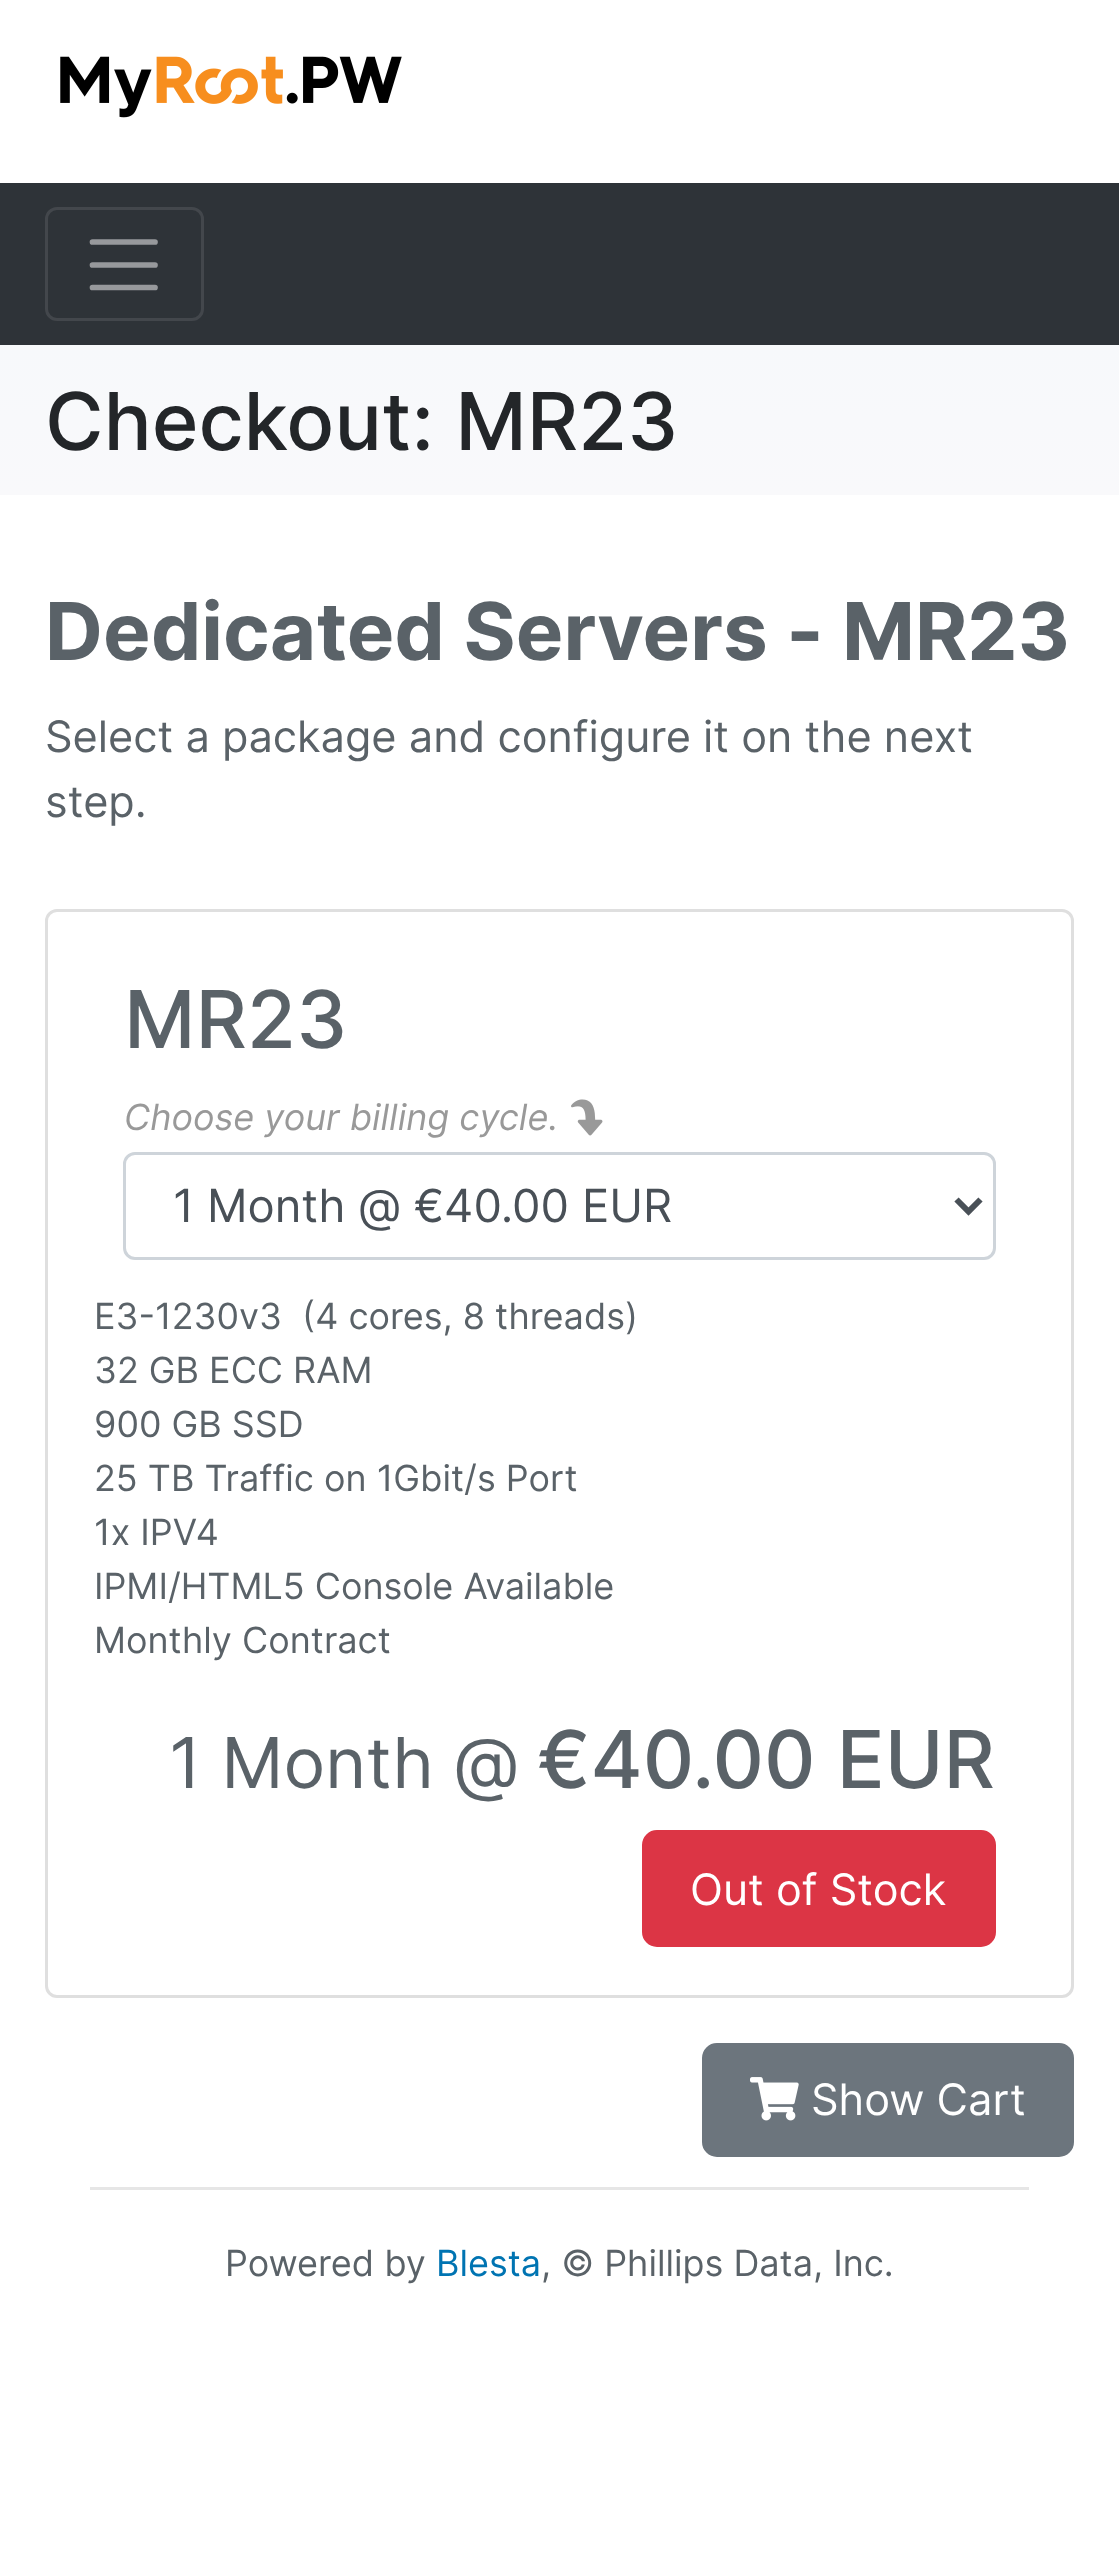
<?xml version="1.0" encoding="UTF-8"?>
<svg xmlns="http://www.w3.org/2000/svg" xmlns:xlink="http://www.w3.org/1999/xlink" width="1119" height="2555">
  <defs>
    <linearGradient id="g1" gradientUnits="userSpaceOnUse" x1="560" y1="345" x2="560" y2="495"><stop offset="0" stop-color="#f7f9fb" /><stop offset="1" stop-color="#f9f9fb" /></linearGradient>
  </defs>
  <rect width="100%" height="100%" fill="#ffffff" />
  <image x="60" y="56" width="342" height="62" xlink:href="image1.png" />
  <rect y="183" width="1119" height="162" fill="#2e3338" />
  <rect x="46.5" y="208.5" width="156" height="111" rx="10.5" fill="none" stroke="#43474c" stroke-width="3" />
  <path d="M 92.5 242 h 62.5 m -62.5 23 h 62.5 m -62.5 22.5 h 62.5" fill="none" stroke="#97999c" stroke-width="5.7" stroke-linecap="round" />
  <rect y="345" width="1119" height="150" fill="url(#g1)" />
  <rect x="46.5" y="910.5" width="1026" height="1086" rx="10.5" fill="none" stroke="#dfdfdf" stroke-width="3" />
  <image x="571" y="1099" width="32" height="37" xlink:href="image2.png" />
  <rect x="124.5" y="1153.5" width="870" height="105" rx="10.5" fill="none" stroke="#ced4da" stroke-width="3" />
  <path d="M 956.5 1199.5 l 12 12 l 12 -12" fill="none" stroke="#495057" stroke-width="6" />
  <rect x="643.5" y="1831.5" width="351" height="114" rx="13.5" fill="#dc3545" stroke="#dc3545" stroke-width="3" />
  <rect x="703.5" y="2044.5" width="369" height="111" rx="13.5" fill="#6c757d" stroke="#6c757d" stroke-width="3" />
  <image x="750" y="2077" width="49" height="44" xlink:href="image3.png" />
  <rect x="90" y="2187" width="939" height="3" fill="#e6e6e6" />
  <text x="45" y="450" style="font-family: Inter; font-size: 79.75px; font-weight: 500; fill: #232629">Checkout: MR23</text>
  <text x="45" y="660" style="font-family: Inter; font-size: 79.75px; font-weight: bold; fill: #5a6268">Dedicated Servers - MR23</text>
  <text x="45" y="752" style="font-family: Inter; font-size: 43.3px; fill: #5a6268">Select a package and configure it on the next</text>
  <text x="45" y="817" style="font-family: Inter; font-size: 43.3px; fill: #5a6268">step.</text>
  <text x="124" y="1048" style="font-family: Inter; font-size: 79.75px; font-weight: 500; fill: #5a6268">MR23</text>
  <text x="124" y="1130" style="font-family: Inter; font-size: 36px; font-style: italic; fill: #999999">Choose your billing cycle.</text>
  <text x="173" y="1222" style="font-family: Inter; font-size: 45.6px; fill: #495057">1 Month @ €40.00 EUR</text>
  <text x="94" y="1329" style="font-family: Inter; font-size: 36px; fill: #5a6268" xml:space="preserve">E3-1230v3  (4 cores, 8 threads)</text>
  <text x="94" y="1383" style="font-family: Inter; font-size: 36px; fill: #5a6268">32 GB ECC RAM</text>
  <text x="94" y="1437" style="font-family: Inter; font-size: 36px; fill: #5a6268">900 GB SSD</text>
  <text x="94" y="1491" style="font-family: Inter; font-size: 36px; fill: #5a6268">25 TB Traffic on 1Gbit/s Port</text>
  <text x="94" y="1545" style="font-family: Inter; font-size: 36px; fill: #5a6268">1x IPV4</text>
  <text x="94" y="1599" style="font-family: Inter; font-size: 36px; fill: #5a6268">IPMI/HTML5 Console Available</text>
  <text x="94" y="1653" style="font-family: Inter; font-size: 36px; fill: #5a6268">Monthly Contract</text>
  <text x="169" y="1788" style="font-family: Inter; font-size: 70px; fill: #5a6268">1 Month @</text>
  <text x="537" y="1788" style="font-family: Inter; font-size: 79.75px; font-weight: 500; fill: #5a6268">€40.00 EUR</text>
  <text x="690" y="1905" style="font-family: Inter; font-size: 43.3px; fill: #ffffff">Out of Stock</text>
  <text x="811" y="2115" style="font-family: Inter; font-size: 43.3px; fill: #ffffff">Show Cart</text>
  <text x="225" y="2276" style="font-family: Inter; font-size: 36px; fill: #5a6268">Powered by</text>
  <text x="436" y="2276" style="font-family: Inter; font-size: 36px; fill: #0074b2">Blesta</text>
  <text x="541" y="2276" style="font-family: Inter; font-size: 36px; fill: #5a6268">, © Phillips Data, Inc.</text>
</svg>
